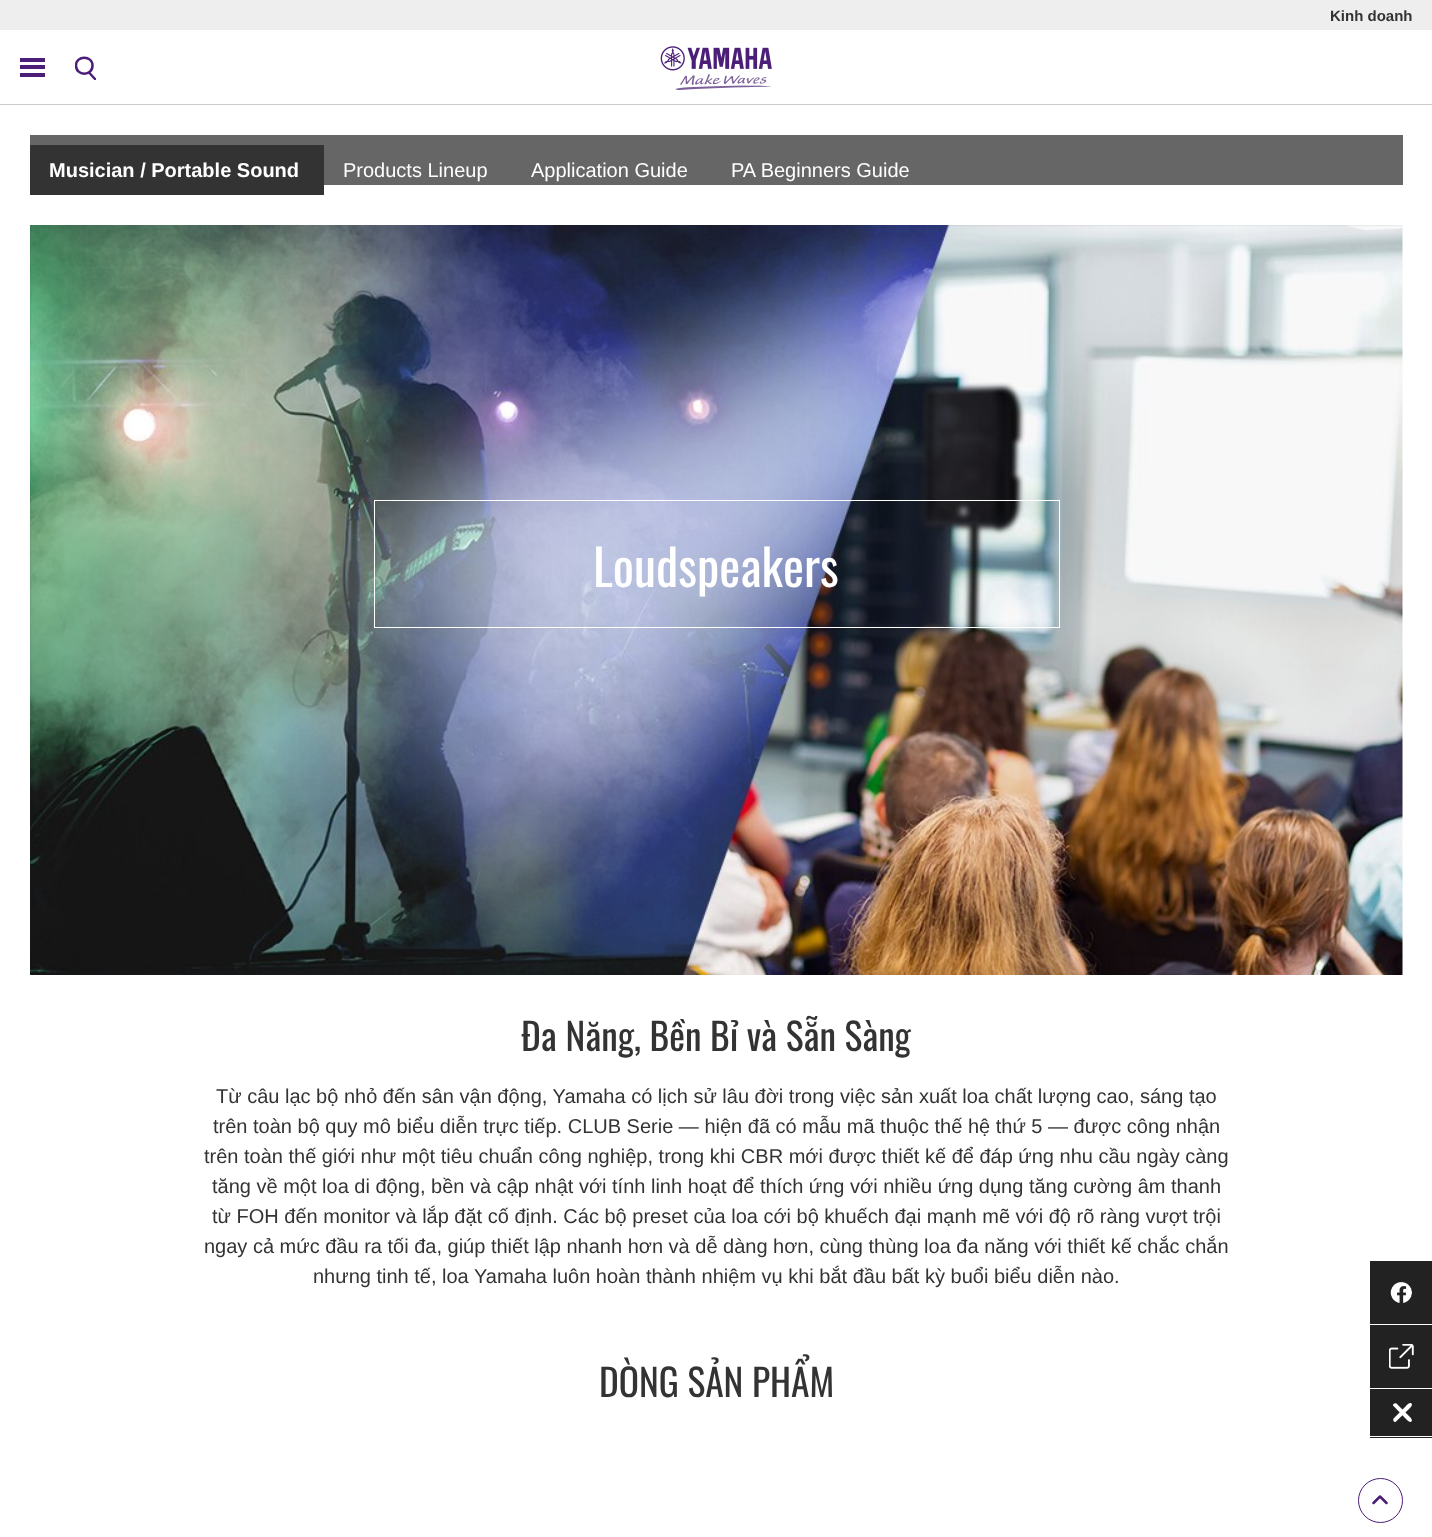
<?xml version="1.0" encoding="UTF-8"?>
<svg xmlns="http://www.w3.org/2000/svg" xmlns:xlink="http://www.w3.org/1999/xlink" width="1432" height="1537">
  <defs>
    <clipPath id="clip1"><rect x="75" y="56" width="21" height="24" /></clipPath>
  </defs>
  <rect width="100%" height="100%" fill="#ffffff" />
  <rect y="104" width="1432" height="1" fill="#cccccc" />
  <rect width="1432" height="30" fill="#eeeeee" />
  <rect x="20" y="65" width="25" height="4" fill="#4b1e78" />
  <rect x="20" y="58" width="25" height="4" fill="#4b1e78" />
  <rect x="20" y="73" width="25" height="4" fill="#4b1e78" />
  <g clip-path="url(#clip1)">
    <path d="M 89 72.5 l 6 6.5 z m -13 -7 c 0 -10.5 16.5 -10.5 16.5 0 c 0 11 -16.5 11 -16.5 0 z" fill="none" stroke="#4b1e78" stroke-width="2.5" stroke-linecap="round" stroke-linejoin="round" />
  </g>
  <image x="660" y="46" width="112" height="44" xlink:href="image1.png" />
  <rect x="30" y="135" width="1373" height="50" fill="#666666" />
  <rect x="30" y="145" width="294" height="50" fill="#333333" />
  <image x="30" y="225" width="1373" height="750" xlink:href="image2.png" />
  <rect x="374.5" y="500.5" width="685" height="127" fill="none" stroke="#ffffff" />
  <rect x="1370" y="1261" width="62" height="177" fill="#222222" />
  <image x="1390" y="1282" width="22" height="21" xlink:href="image3.png" />
  <rect x="1369" y="1324" width="63" height="1" fill="#ffffff" />
  <image x="1389" y="1344" width="25" height="25" xlink:href="image4.png" />
  <rect x="1369" y="1388" width="63" height="1" fill="#ffffff" />
  <rect x="1369" y="1436" width="63" height="1" fill="#ffffff" />
  <path d="M 1396.5 1403.5 l 12.5 12.5 c 1 1 4 3.5 2.5 5.5 c -2 1.5 -4.5 -1.5 -5.5 -2.5 l -13 -13.5 c -0.5 -1.5 2 -3 3.5 -2 z" fill="#ffffff" />
  <path d="M 1393.5 1418.5 l 12.5 -12.5 c 1 -1 3.5 -4 5.5 -2.5 c 1.5 2 -1.5 4.5 -2.5 5.5 l -13.5 13 c -1.5 0.5 -3 -2 -2 -3.5 z" fill="#ffffff" />
  <circle cx="1380.5" cy="1500.5" r="22" fill="none" stroke="#4b1e78" />
  <path d="M 1373.5 1503 l 6.5 -6.5 l 6.5 6.5" fill="none" stroke="#4b1e78" stroke-width="2.5" stroke-linecap="round" stroke-linejoin="round" />
  <text x="1330" y="21" style="font-family: Liberation Sans; font-size: 15px; font-weight: bold; fill: #333333">Kinh doanh</text>
  <text x="49" y="177" style="font-family: Liberation Sans; font-size: 20px; font-weight: bold; fill: #ffffff">Musician / Portable Sound</text>
  <text x="343" y="177" style="font-family: Liberation Sans; font-size: 20px; fill: #ffffff">Products Lineup</text>
  <text x="531" y="177" style="font-family: Liberation Sans; font-size: 20px; fill: #ffffff">Application Guide</text>
  <text x="731" y="177" style="font-family: Liberation Sans; font-size: 20px; fill: #ffffff">PA Beginners Guide</text>
  <text x="593" y="587" style="font-family: Oswald; font-size: 50px; fill: #ffffff">Loudspeakers</text>
  <text x="521" y="1051" style="font-family: Oswald; font-size: 37.5px; fill: #333333">Đa Năng, Bền Bỉ và Sẵn Sàng</text>
  <text x="216" y="1103" style="font-family: Liberation Sans; font-size: 20px; fill: #333333">Từ câu lạc bộ nhỏ đến sân vận động, Yamaha có lịch sử lâu đời trong việc sản xuất loa chất lượng cao, sáng tạo</text>
  <text x="213" y="1133" style="font-family: Liberation Sans; font-size: 20px; fill: #333333">trên toàn bộ quy mô biểu diễn trực tiếp. CLUB Serie — hiện đã có mẫu mã thuộc thế hệ thứ 5 — được công nhận</text>
  <text x="204" y="1163" style="font-family: Liberation Sans; font-size: 20px; fill: #333333">trên toàn thế giới như một tiêu chuẩn công nghiệp, trong khi CBR mới được thiết kế để đáp ứng nhu cầu ngày càng</text>
  <text x="212" y="1193" style="font-family: Liberation Sans; font-size: 20px; fill: #333333">tăng về một loa di động, bền và cập nhật với tính linh hoạt để thích ứng với nhiều ứng dụng tăng cường âm thanh</text>
  <text x="212" y="1223" style="font-family: Liberation Sans; font-size: 20px; fill: #333333">từ FOH đến monitor và lắp đặt cố định. Các bộ preset của loa cới bộ khuếch đại mạnh mẽ với độ rõ ràng vượt trội</text>
  <text x="204" y="1253" style="font-family: Liberation Sans; font-size: 20px; fill: #333333">ngay cả mức đầu ra tối đa, giúp thiết lập nhanh hơn và dễ dàng hơn, cùng thùng loa đa năng với thiết kế chắc chắn</text>
  <text x="313" y="1283" style="font-family: Liberation Sans; font-size: 20px; fill: #333333">nhưng tinh tế, loa Yamaha luôn hoàn thành nhiệm vụ khi bắt đầu bất kỳ buổi biểu diễn nào.</text>
  <text x="599" y="1397" style="font-family: Oswald; font-size: 37.5px; fill: #333333">DÒNG SẢN PHẨM</text>
</svg>
